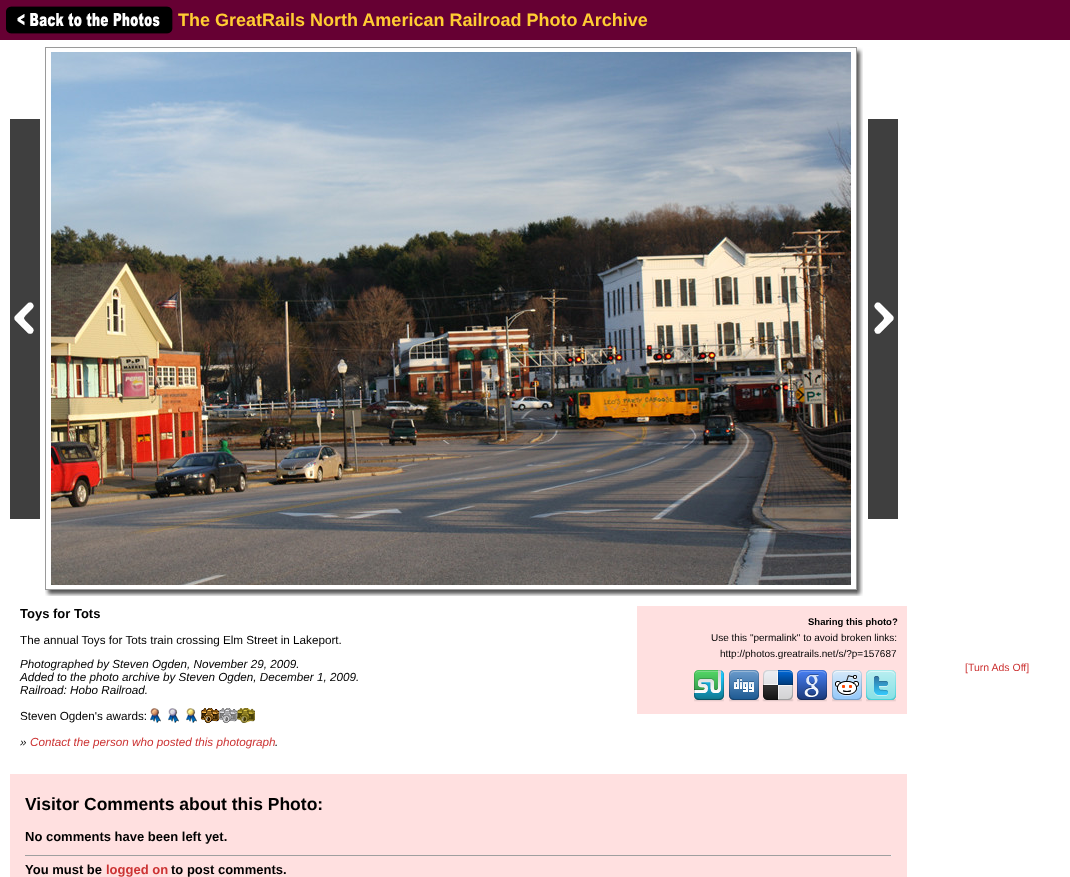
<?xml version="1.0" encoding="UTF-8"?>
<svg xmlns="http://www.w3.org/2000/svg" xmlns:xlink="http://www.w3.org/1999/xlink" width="1070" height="877">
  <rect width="100%" height="100%" fill="#ffffff" />
  <rect width="1070" height="40" fill="#660033" />
  <image x="6" y="6" width="167" height="28" xlink:href="image1.png" />
  <image x="10" y="119" width="30" height="400" xlink:href="image2.png" />
  <rect x="45.5" y="47.5" width="811" height="542" fill="none" stroke="#9a9a9a" />
  <image x="51" y="52" width="800" height="533" xlink:href="image3.png" />
  <image x="857" y="47" width="6" height="543" xlink:href="image4.png" />
  <image x="868" y="119" width="30" height="400" xlink:href="image5.png" />
  <image x="45" y="590" width="812" height="6" xlink:href="image6.png" />
  <image x="857" y="590" width="6" height="6" xlink:href="image7.png" />
  <image x="150" y="708" width="11" height="15" xlink:href="image8.png" />
  <image x="168" y="708" width="11" height="15" xlink:href="image9.png" />
  <image x="186" y="708" width="11" height="15" xlink:href="image10.png" />
  <image x="201" y="708" width="18" height="15" xlink:href="image11.png" />
  <image x="219" y="708" width="18" height="15" xlink:href="image12.png" />
  <image x="237" y="708" width="18" height="15" xlink:href="image13.png" />
  <rect x="637" y="606" width="270" height="108" fill="#ffe0e0" />
  <image x="694" y="670" width="30" height="32" xlink:href="image14.png" />
  <image x="729" y="670" width="30" height="32" xlink:href="image15.png" />
  <image x="762" y="670" width="32" height="32" xlink:href="image16.png" />
  <image x="797" y="670" width="30" height="32" xlink:href="image17.png" />
  <image x="832" y="670" width="30" height="32" xlink:href="image18.png" />
  <image x="866" y="670" width="30" height="32" xlink:href="image19.png" />
  <rect x="10" y="774" width="897" height="103" fill="#ffe0e0" />
  <rect x="25" y="855" width="867" height="1" fill="#9f9f9f" />
  <rect x="891" y="855" width="1" height="1" fill="#eeeeee" />
  <text x="178" y="26" style="font-family: Liberation Sans; font-size: 18px; font-weight: bold; fill: #ffcc33">The GreatRails North American Railroad Photo Archive</text>
  <text x="20" y="618" style="font-family: Liberation Sans; font-size: 13px; font-weight: bold; fill: #000000">Toys for Tots</text>
  <text x="20" y="644" style="font-family: Liberation Sans; font-size: 11.7px; fill: #000000">The annual Toys for Tots train crossing Elm Street in Lakeport.</text>
  <text x="20" y="668" style="font-family: Liberation Sans; font-size: 11.7px; font-style: italic; fill: #000000">Photographed by Steven Ogden, November 29, 2009.</text>
  <text x="20" y="681" style="font-family: Liberation Sans; font-size: 11.7px; font-style: italic; fill: #000000">Added to the photo archive by Steven Ogden, December 1, 2009.</text>
  <text x="20" y="694" style="font-family: Liberation Sans; font-size: 11.7px; font-style: italic; fill: #000000">Railroad: Hobo Railroad.</text>
  <text x="20" y="720" style="font-family: Liberation Sans; font-size: 11.7px; fill: #000000">Steven Ogden's awards:</text>
  <text x="20" y="746" style="font-family: Liberation Sans; font-size: 11.7px; font-style: italic; fill: #000000">»</text>
  <text x="30" y="746" style="font-family: Liberation Sans; font-size: 11.7px; font-style: italic; fill: #cc3333">Contact the person who posted this photograph</text>
  <text x="275" y="746" style="font-family: Liberation Sans; font-size: 11.7px; font-style: italic; fill: #000000">.</text>
  <text x="808" y="625" style="font-family: Liberation Sans; font-size: 9.5px; font-weight: bold; fill: #000000">Sharing this photo?</text>
  <text x="711" y="641" style="font-family: Liberation Sans; font-size: 10px; fill: #000000">Use this "permalink" to avoid broken links:</text>
  <text x="720" y="657" style="font-family: Liberation Sans; font-size: 10px; fill: #000000">http://photos.greatrails.net/s/?p=157687</text>
  <text x="965" y="671" style="font-family: Liberation Sans; font-size: 10.5px; fill: #cc3333">[Turn Ads Off]</text>
  <text x="25" y="810" style="font-family: Liberation Sans; font-size: 17.5px; font-weight: bold; fill: #000000">Visitor Comments about this Photo:</text>
  <text x="25" y="841" style="font-family: Liberation Sans; font-size: 13px; font-weight: bold; fill: #000000">No comments have been left yet.</text>
  <text x="25" y="874" style="font-family: Liberation Sans; font-size: 13px; font-weight: bold; fill: #000000">You must be</text>
  <text x="106" y="874" style="font-family: Liberation Sans; font-size: 13px; font-weight: bold; fill: #cc3333">logged on</text>
  <text x="171" y="874" style="font-family: Liberation Sans; font-size: 13px; font-weight: bold; fill: #000000">to post comments.</text>
</svg>
